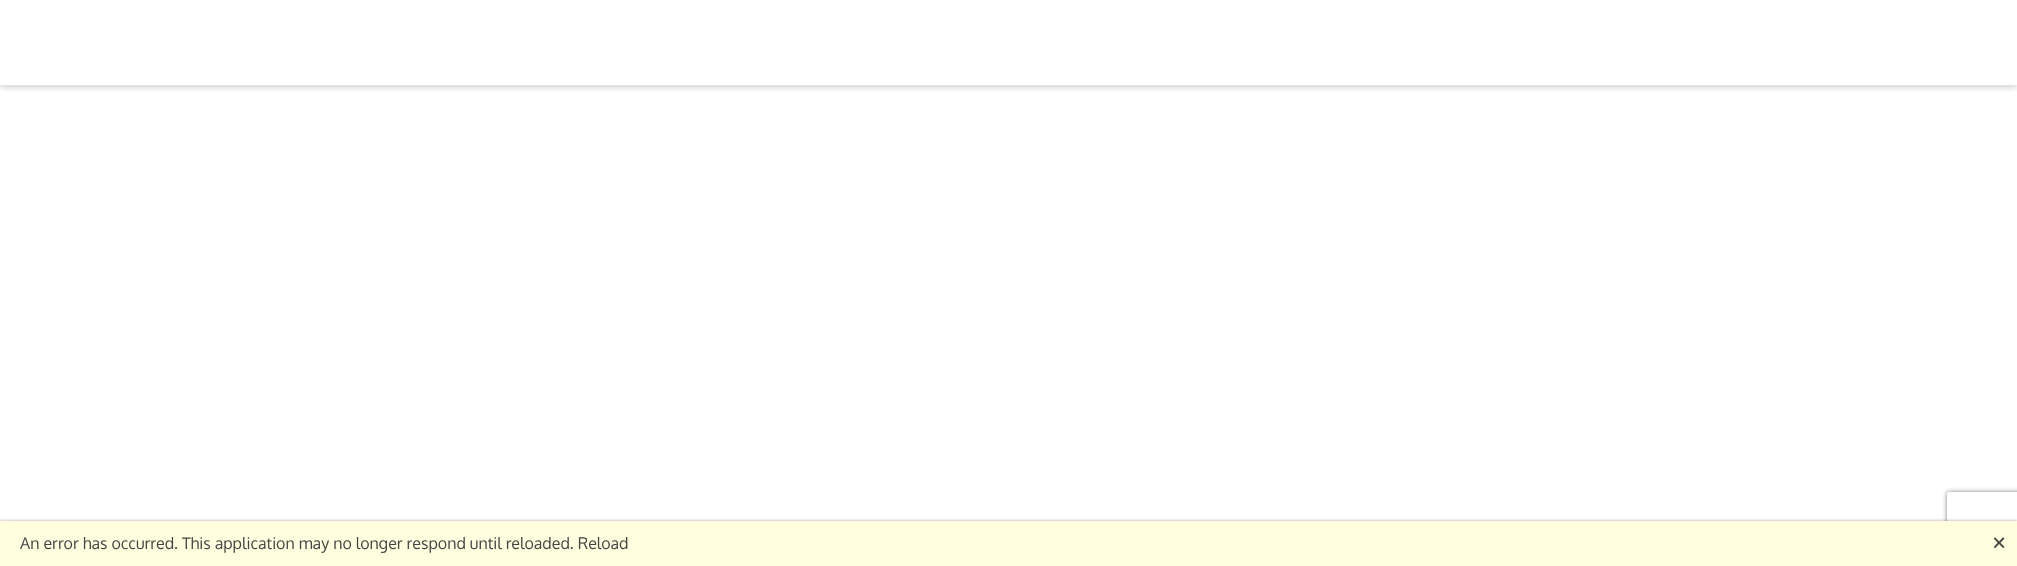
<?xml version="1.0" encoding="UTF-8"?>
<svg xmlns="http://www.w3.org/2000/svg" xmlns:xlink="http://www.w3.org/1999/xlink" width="2017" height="566">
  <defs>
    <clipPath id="clip1"><rect x="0" y="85" width="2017" height="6" /></clipPath>
    <clipPath id="clip2"><path d="M 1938 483 h 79 v 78 h -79 z m 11 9 h 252 c 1 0 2 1 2 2 v 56 c 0 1 -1 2 -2 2 h -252 c -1 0 -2 -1 -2 -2 v -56 c 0 -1 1 -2 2 -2 z" clip-rule="evenodd" /></clipPath>
  </defs>
  <rect width="100%" height="100%" fill="#ffffff" />
  <g clip-path="url(#clip1)">
    <rect y="3" width="2017" height="85" fill="#000000" fill-opacity="0.16" filter="blur(3px)" />
  </g>
  <g clip-path="url(#clip2)">
    <rect x="1947" y="492" width="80" height="60" rx="2" fill="#808080" filter="blur(2.5px)" />
  </g>
  <rect y="520" width="2017" height="45" fill="#000000" fill-opacity="0.2" filter="blur(1px)" />
  <rect y="521" width="2017" height="45" fill="#ffffe0" />
  <text x="20" y="549" style="font-family: Oxygen; font-size: 16px; fill: #444444">An error has occurred. This application may no longer respond until reloaded. Reload</text>
  <text x="1993" y="547" style="font-family: 'Noto Sans Symbols 2'; font-size: 16px; fill: #444444">🗙</text>
</svg>
